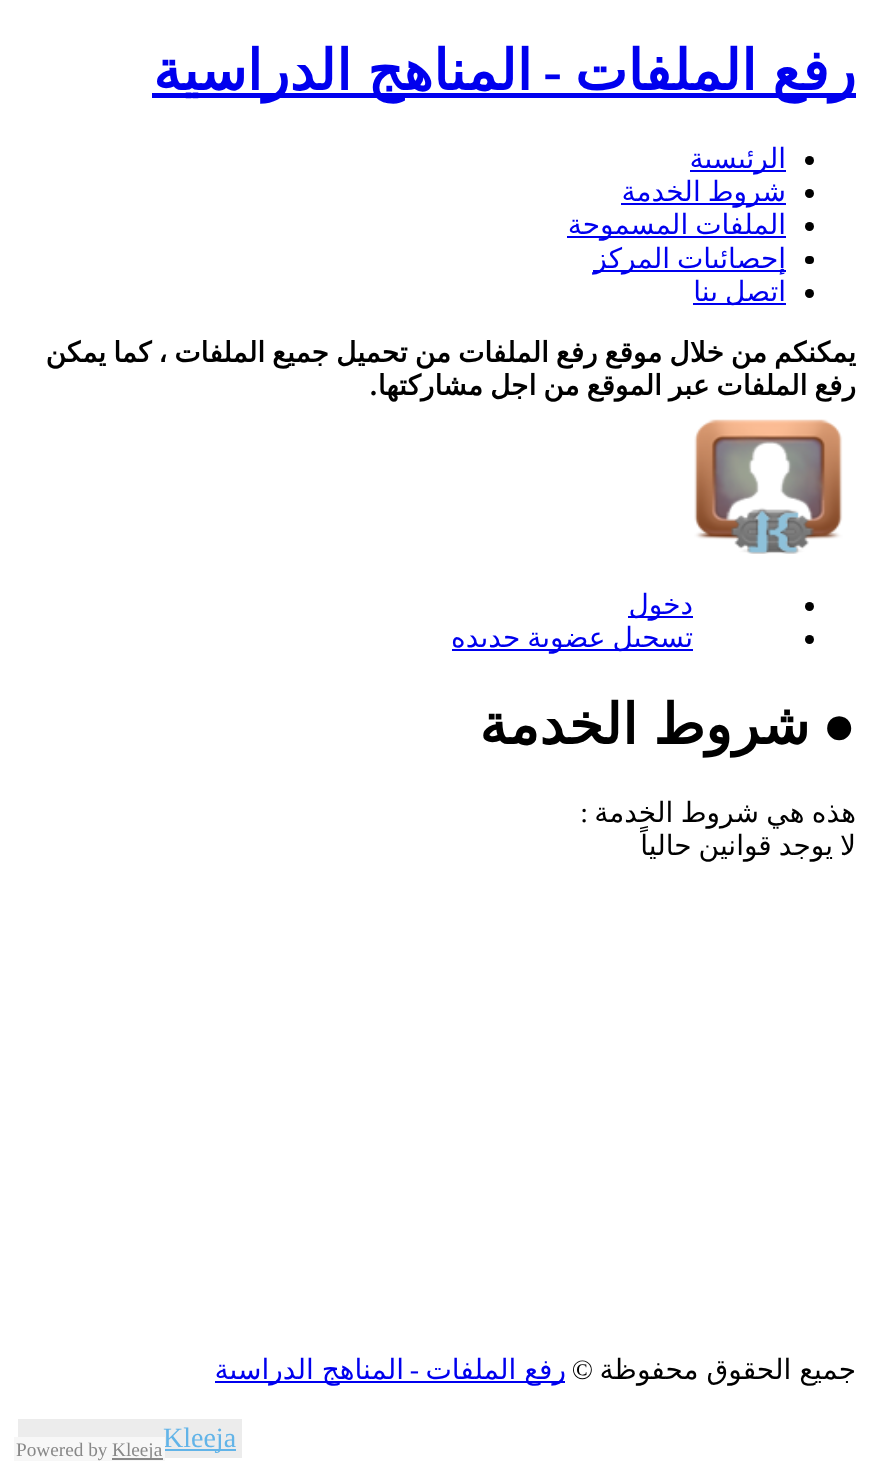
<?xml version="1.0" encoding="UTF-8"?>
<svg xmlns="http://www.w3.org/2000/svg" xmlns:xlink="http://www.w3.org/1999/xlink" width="869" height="1466">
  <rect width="100%" height="100%" fill="#ffffff" />
  <rect x="152" y="93" width="704" height="5" fill="#0000ee" />
  <circle cx="809.5" cy="160.5" r="4.5" fill="#000000" />
  <rect x="690" y="170" width="96" height="2" fill="#0000ee" />
  <circle cx="809.5" cy="193.5" r="4.5" fill="#000000" />
  <rect x="621" y="203" width="165" height="2" fill="#0000ee" />
  <circle cx="809.5" cy="226.5" r="4.5" fill="#000000" />
  <rect x="567" y="236" width="219" height="2" fill="#0000ee" />
  <rect x="805" y="256" width="9" height="8" rx="4" fill="#000000" />
  <rect x="593" y="270" width="193" height="2" fill="#0000ee" />
  <circle cx="809.5" cy="293.5" r="4.5" fill="#000000" />
  <rect x="693" y="303" width="93" height="2" fill="#0000ee" />
  <image x="694" y="419" width="149" height="135" xlink:href="image1.png" />
  <circle cx="809.5" cy="606.5" r="4.5" fill="#000000" />
  <rect x="628" y="616" width="65" height="2" fill="#0000ee" />
  <circle cx="809.5" cy="639.5" r="4.5" fill="#000000" />
  <rect x="452" y="649" width="241" height="2" fill="#0000ee" />
  <rect x="215" y="1381" width="350" height="2" fill="#0000ee" />
  <rect x="18" y="1419" width="224" height="39" fill="#ececec" />
  <rect x="163" y="1449" width="73" height="2" fill="#62b4e8" />
  <text x="856" y="90" word-spacing="-1.9" style="font-family: DejaVu Sans; font-size: 56px; font-weight: bold; direction: rtl; fill: #0000ee">رفع الملفات</text>
  <text x="562" y="90" style="font-family: Liberation Serif; font-size: 56px; font-weight: bold; direction: rtl; fill: #0000ee">-</text>
  <text x="532" y="90" word-spacing="-1.9" style="font-family: DejaVu Sans; font-size: 56px; font-weight: bold; direction: rtl; fill: #0000ee">المناهج الدراسية</text>
  <text x="786" y="168" style="font-family: DejaVu Sans; font-size: 28px; direction: rtl; fill: #0000ee">الرئيسية</text>
  <text x="786" y="201" word-spacing="-1.9" style="font-family: DejaVu Sans; font-size: 28px; direction: rtl; fill: #0000ee">شروط الخدمة</text>
  <text x="786" y="234" word-spacing="-1.9" style="font-family: DejaVu Sans; font-size: 28px; direction: rtl; fill: #0000ee">الملفات المسموحة</text>
  <text x="786" y="268" word-spacing="-1.9" style="font-family: DejaVu Sans; font-size: 28px; direction: rtl; fill: #0000ee">إحصائيات المركز</text>
  <text x="786" y="301" word-spacing="-1.9" style="font-family: DejaVu Sans; font-size: 28px; direction: rtl; fill: #0000ee">اتصل بنا</text>
  <text x="856" y="362" word-spacing="-1.9" style="font-family: DejaVu Sans; font-size: 28px; font-weight: bold; direction: rtl; fill: #000000">يمكنكم من خلال موقع رفع الملفات من تحميل جميع الملفات ، كما يمكن</text>
  <text x="856" y="395" word-spacing="-1.9" style="font-family: DejaVu Sans; font-size: 28px; font-weight: bold; direction: rtl; fill: #000000">رفع الملفات عبر الموقع من اجل مشاركتها</text>
  <text x="377" y="395" style="font-family: Liberation Serif; font-size: 28px; font-weight: bold; direction: rtl; fill: #000000">.</text>
  <text x="693" y="614" style="font-family: DejaVu Sans; font-size: 28px; direction: rtl; fill: #0000ee">دخول</text>
  <text x="693" y="647" word-spacing="-1.9" style="font-family: DejaVu Sans; font-size: 28px; direction: rtl; fill: #0000ee">تسجيل عضوية جديده</text>
  <text x="856" y="744" style="font-family: Liberation Serif; font-size: 56px; font-weight: bold; direction: rtl; fill: #000000">●</text>
  <text x="810" y="744" word-spacing="-1.9" style="font-family: DejaVu Sans; font-size: 56px; font-weight: bold; direction: rtl; fill: #000000">شروط الخدمة</text>
  <text x="856" y="822" word-spacing="-1.5" style="font-family: DejaVu Sans; font-size: 28px; direction: rtl; fill: #000000">هذه هي شروط الخدمة</text>
  <text x="588" y="822" style="font-family: Liberation Serif; font-size: 28px; direction: rtl; fill: #000000">:</text>
  <text x="856" y="855" word-spacing="-1.9" style="font-family: DejaVu Sans; font-size: 28px; direction: rtl; fill: #000000">لا يوجد قوانين حالياً</text>
  <text x="856" y="1379" word-spacing="-1" style="font-family: DejaVu Sans; font-size: 28px; direction: rtl; fill: #000000">جميع الحقوق محفوظة</text>
  <text x="593" y="1379" style="font-family: Liberation Serif; font-size: 28px; direction: rtl; fill: #000000">©</text>
  <text x="566" y="1379" word-spacing="-1" style="font-family: DejaVu Sans; font-size: 28px; direction: rtl; fill: #0000ee">رفع الملفات</text>
  <text x="419" y="1379" style="font-family: Liberation Serif; font-size: 28px; direction: rtl; fill: #0000ee">-</text>
  <text x="404" y="1379" word-spacing="-1" style="font-family: DejaVu Sans; font-size: 28px; direction: rtl; fill: #0000ee">المناهج الدراسية</text>
  <text x="163" y="1447" style="font-family: Liberation Serif; font-size: 28px; fill: #62b4e8">Kleeja</text>
  <rect x="14" y="1437" width="151" height="24" fill="#f7f7f7" />
  <rect x="112" y="1458" width="51" height="2" fill="#888888" />
  <text x="112" y="1456" style="font-family: Liberation Serif; font-size: 19.25px; fill: #888888">Kleeja</text>
  <text x="16" y="1456" style="font-family: Liberation Serif; font-size: 19.25px; fill: #888888">Powered by</text>
</svg>
